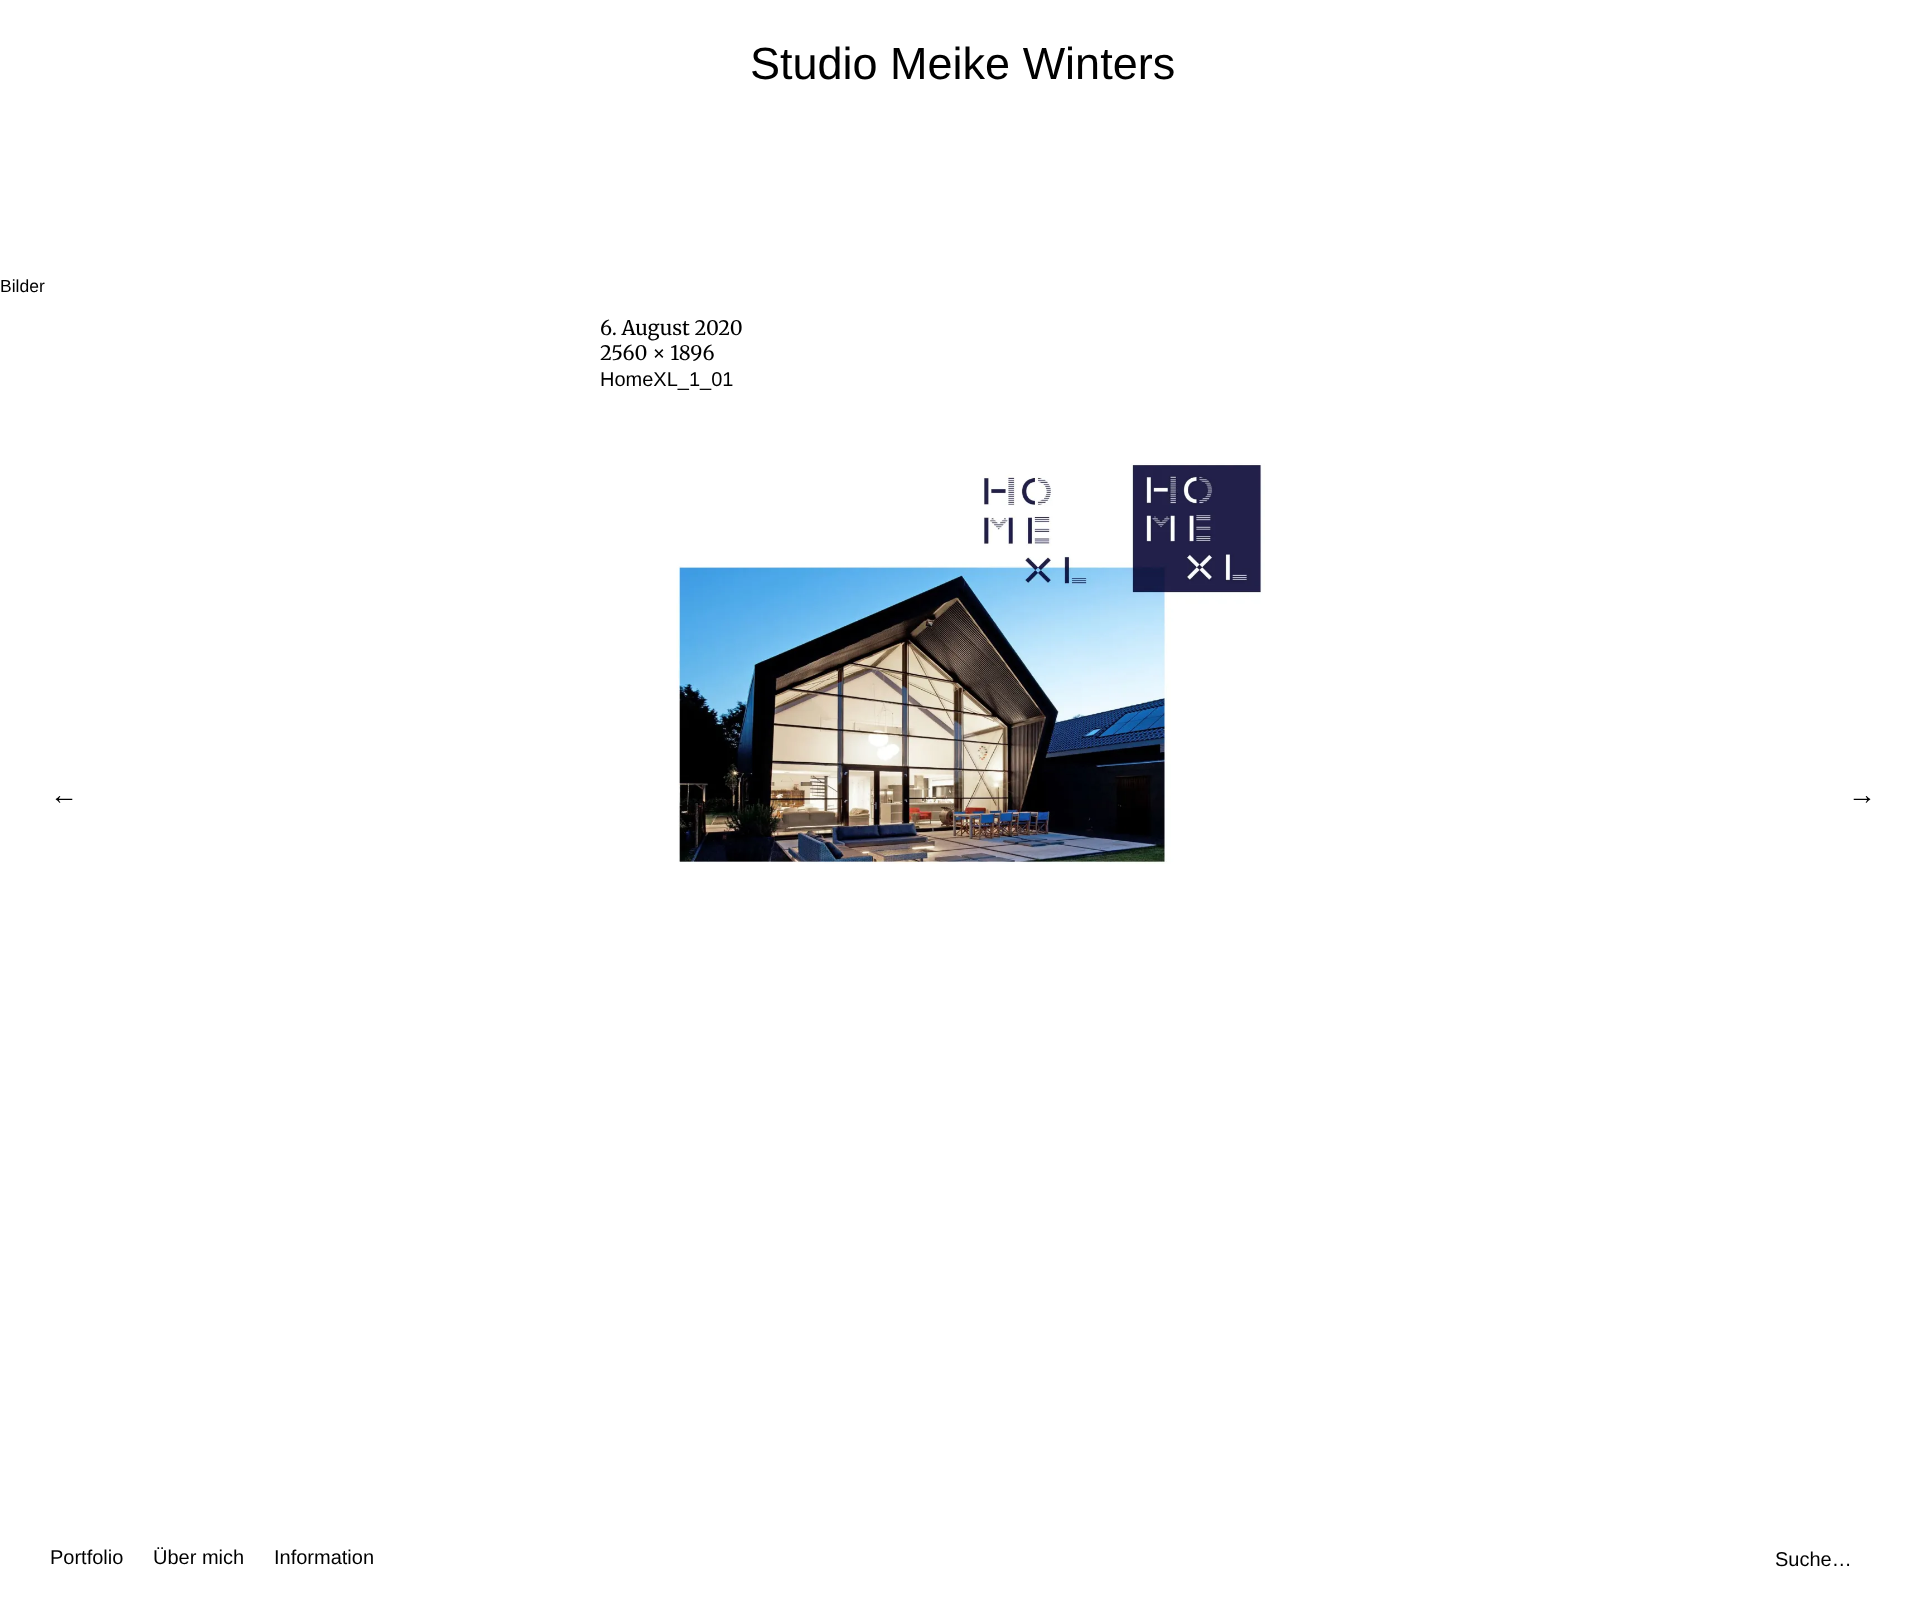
<?xml version="1.0" encoding="UTF-8"?>
<svg xmlns="http://www.w3.org/2000/svg" xmlns:xlink="http://www.w3.org/1999/xlink" width="1924" height="1608">
  <rect width="100%" height="100%" fill="#ffffff" />
  <image x="676" y="463" width="589" height="401" xlink:href="image1.png" />
  <text x="750" y="79" style="font-family: Liberation Sans; font-size: 45px; fill: #000000">Studio Meike Winters</text>
  <text x="50" y="1564" style="font-family: Liberation Sans; font-size: 20px; fill: #000000">Portfolio</text>
  <text x="153" y="1564" style="font-family: Liberation Sans; font-size: 20px; fill: #000000">Über mich</text>
  <text x="274" y="1564" style="font-family: Liberation Sans; font-size: 20px; fill: #000000">Information</text>
  <text x="0" y="292" style="font-family: Liberation Sans; font-size: 17.5px; fill: #000000">Bilder</text>
  <text x="600" y="335" style="font-family: Merriweather; font-size: 20px; fill: #000000">6. August 2020</text>
  <text x="600" y="360" style="font-family: Merriweather; font-size: 20px; fill: #000000">2560 × 1896</text>
  <text x="600" y="386" style="font-family: Liberation Sans; font-size: 20px; fill: #000000">HomeXL_1_01</text>
  <text x="50" y="804" style="font-family: Liberation Sans; font-size: 28px; fill: #000000">←</text>
  <text x="1848" y="804" style="font-family: Liberation Sans; font-size: 28px; fill: #000000">→</text>
  <text x="1775" y="1566" style="font-family: Liberation Sans; font-size: 20px; fill: #000000">Suche…</text>
</svg>
